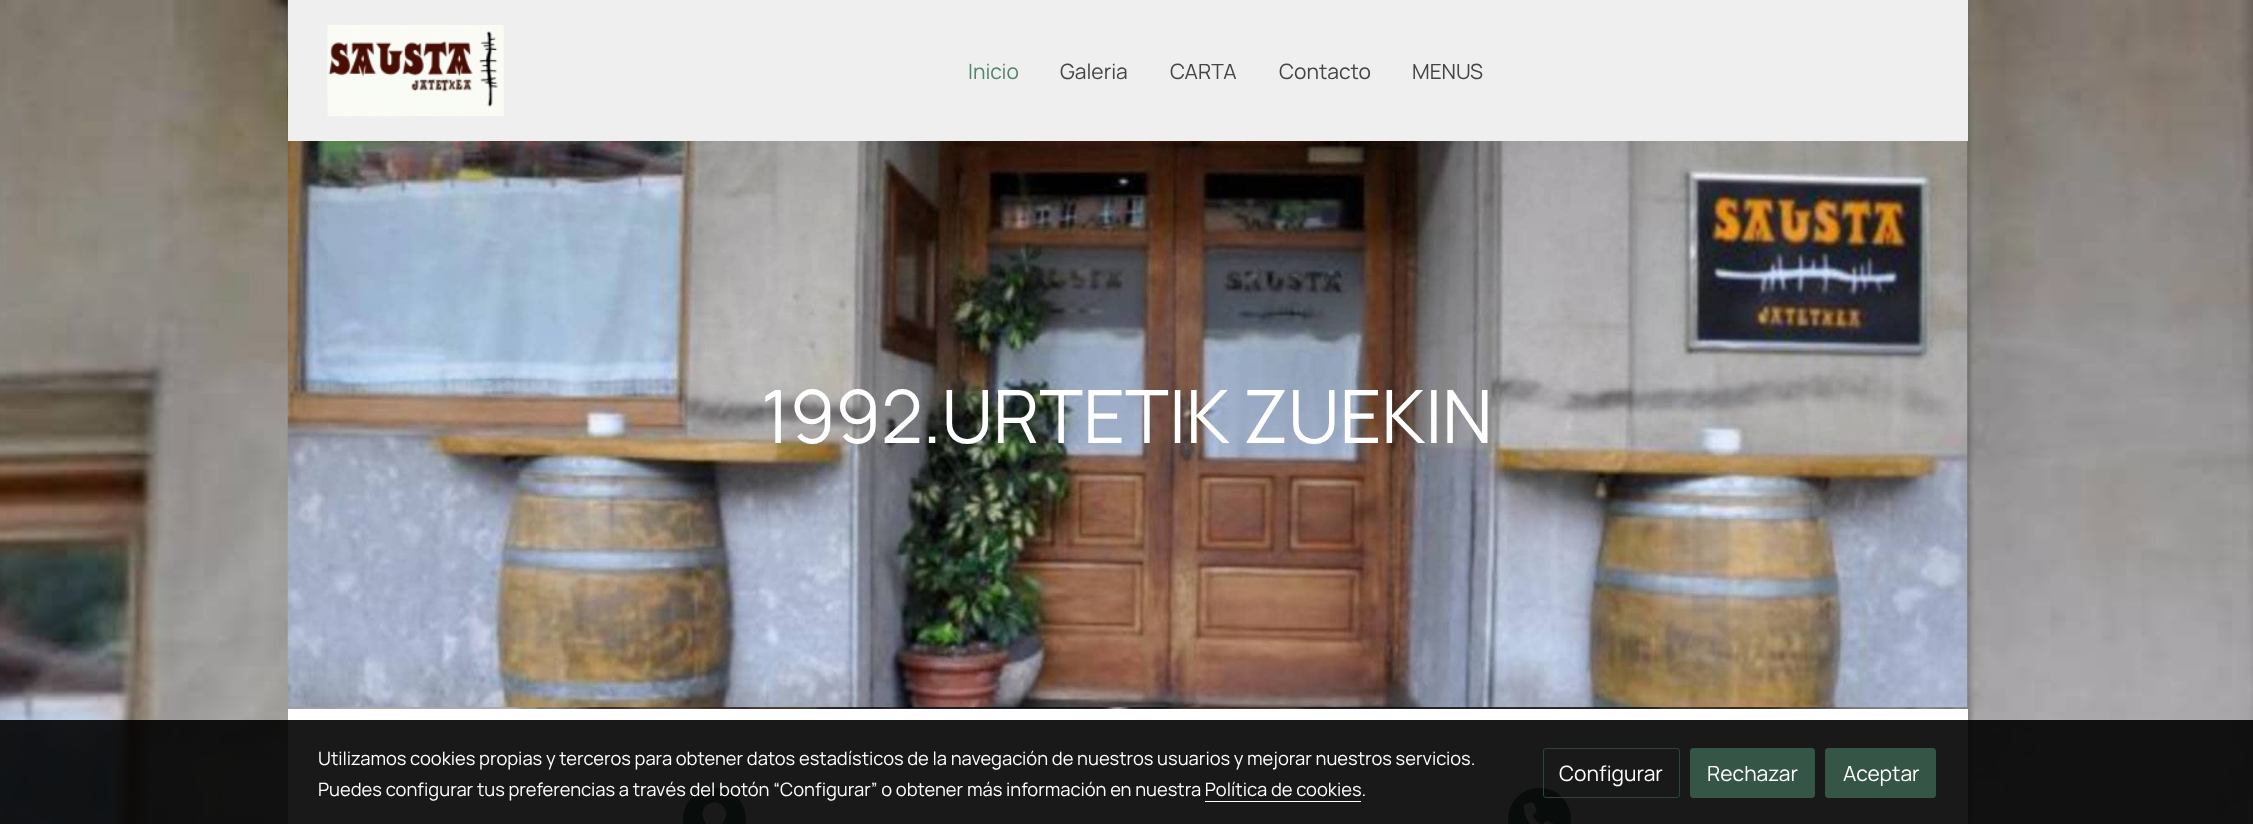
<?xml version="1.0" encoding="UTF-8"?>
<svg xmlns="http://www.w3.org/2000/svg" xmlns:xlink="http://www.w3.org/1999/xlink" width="2253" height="824">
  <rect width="100%" height="100%" fill="#ffffff" />
  <image x="0" y="0" width="2253" height="824" xlink:href="image1.png" />
  <image x="287" y="0" width="1681" height="708" xlink:href="image3.png" />
  <rect x="288" width="1680" height="141" fill="#efefef" />
  <image x="327" y="25" width="177" height="92" xlink:href="image2.png" />
  <rect x="288" y="708" width="1680" height="1" fill="#adb5bd" fill-opacity="0.2" />
  <rect x="288" y="709" width="1680" height="115" fill="#ffffff" />
  <rect x="683" y="788" width="63" height="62" rx="31" fill="#53846d" />
  <image x="702" y="802" width="25" height="22" xlink:href="image4.png" />
  <rect x="1508" y="788" width="63" height="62" rx="31" fill="#53846d" />
  <image x="1523" y="802" width="31" height="22" xlink:href="image5.png" />
  <rect y="720" width="2253" height="104" fill="#000000" fill-opacity="0.9" />
  <rect x="1205" y="801" width="156" height="1" fill="#ffffff" />
  <rect x="1543.5" y="748.5" width="136" height="49" rx="2.5" fill="none" stroke="#2c4539" />
  <rect x="1690.5" y="748.5" width="124" height="49" rx="2.5" fill="#355546" stroke="#355546" />
  <rect x="1825.5" y="748.5" width="110" height="49" rx="2.5" fill="#355546" stroke="#355546" />
  <text x="968" y="79" style="font-family: Manrope; font-size: 21px; font-weight: 200; fill: #53846d">Inicio</text>
  <text x="1060" y="79" style="font-family: Manrope; font-size: 21px; font-weight: 200; fill: #444444">Galeria</text>
  <text x="1170" y="79" style="font-family: Manrope; font-size: 21px; font-weight: 200; fill: #444444">CARTA</text>
  <text x="1279" y="79" style="font-family: Manrope; font-size: 21px; font-weight: 200; fill: #444444">Contacto</text>
  <text x="1412" y="79" style="font-family: Manrope; font-size: 21px; font-weight: 200; fill: #444444">MENUS</text>
  <text x="761" y="443" style="font-family: Manrope; font-size: 73.5px; font-weight: 200; fill: #ffffff">1992.URTETIK ZUEKIN</text>
  <text x="318" y="765" style="font-family: Manrope; font-size: 18.38px; font-weight: 200; fill: #ffffff">Utilizamos cookies propias y terceros para obtener datos estadísticos de la navegación de nuestros usuarios y mejorar nuestros servicios.</text>
  <text x="318" y="796" style="font-family: Manrope; font-size: 18.38px; font-weight: 200; fill: #ffffff">Puedes configurar tus preferencias a través del botón “Configurar” o obtener más información en nuestra Política de cookies.</text>
  <text x="1559" y="781" style="font-family: Manrope; font-size: 21px; font-weight: 200; fill: #ffffff">Configurar</text>
  <text x="1707" y="781" style="font-family: Manrope; font-size: 21px; font-weight: 200; fill: #ffffff">Rechazar</text>
  <text x="1843" y="781" style="font-family: Manrope; font-size: 21px; font-weight: 200; fill: #ffffff">Aceptar</text>
</svg>
